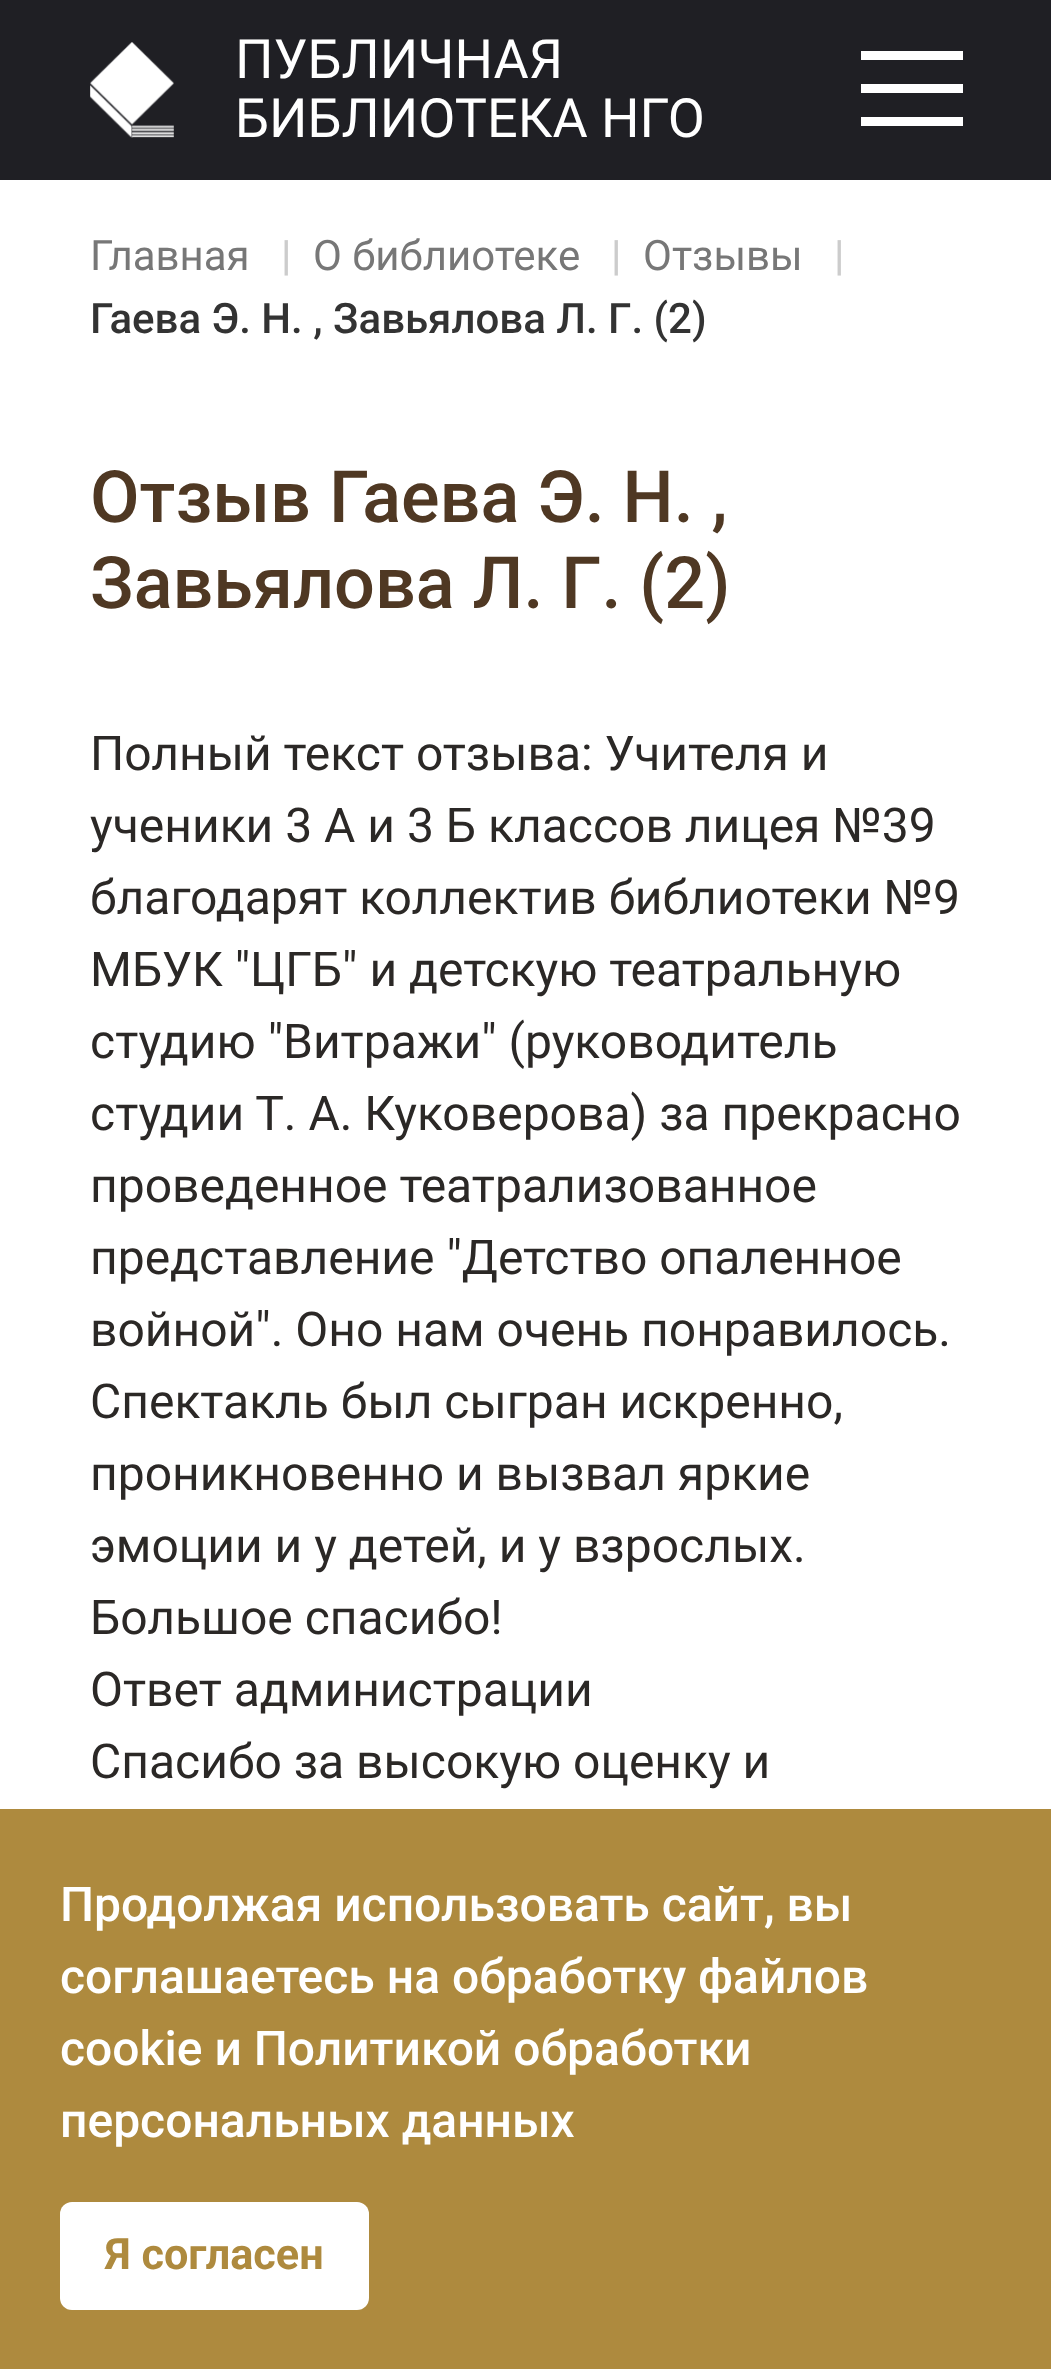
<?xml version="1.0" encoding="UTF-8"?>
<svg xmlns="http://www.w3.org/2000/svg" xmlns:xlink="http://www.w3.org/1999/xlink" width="1051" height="2369">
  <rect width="100%" height="100%" fill="#ffffff" />
  <rect width="1051" height="180" fill="#1f1f24" />
  <image x="90" y="42" width="84" height="96" xlink:href="image1.png" />
  <rect x="861" y="51" width="102" height="9" fill="#ffffff" />
  <rect x="861" y="84" width="102" height="9" fill="#ffffff" />
  <rect x="861" y="117" width="102" height="9" fill="#ffffff" />
  <rect y="1809" width="1051" height="560" fill="#ae8a3e" />
  <rect x="60" y="2202" width="309" height="108" rx="12" fill="#ffffff" />
  <text x="235" y="78" style="font-family: Roboto; font-size: 54px; fill: #ffffff">ПУБЛИЧНАЯ</text>
  <text x="235" y="137" style="font-family: Roboto; font-size: 54px; fill: #ffffff">БИБЛИОТЕКА НГО</text>
  <text x="90" y="270" style="font-family: Roboto; font-size: 42px; fill: #777777">Главная</text>
  <text x="281" y="270" style="font-family: Roboto; font-size: 42px; font-weight: 500; fill: #cccccc">|</text>
  <text x="313" y="270" style="font-family: Roboto; font-size: 42px; fill: #777777">О библиотеке</text>
  <text x="611" y="270" style="font-family: Roboto; font-size: 42px; font-weight: 500; fill: #cccccc">|</text>
  <text x="643" y="270" style="font-family: Roboto; font-size: 42px; fill: #777777">Отзывы</text>
  <text x="834" y="270" style="font-family: Roboto; font-size: 42px; font-weight: 500; fill: #cccccc">|</text>
  <text x="90" y="333" style="font-family: Roboto; font-size: 42px; font-weight: 500; fill: #333333">Гаева Э. Н. , Завьялова Л. Г. (2)</text>
  <text x="90" y="522" style="font-family: Roboto; font-size: 72px; font-weight: 500; fill: #4f3823">Отзыв Гаева Э. Н. ,</text>
  <text x="90" y="608" style="font-family: Roboto; font-size: 72px; font-weight: 500; fill: #4f3823">Завьялова Л. Г. (2)</text>
  <text x="90" y="770" style="font-family: Roboto; font-size: 48px; fill: #2b2826">Полный текст отзыва: Учителя и</text>
  <text x="90" y="842" style="font-family: Roboto; font-size: 48px; fill: #2b2826">ученики 3 А и 3 Б классов лицея №39</text>
  <text x="90" y="914" style="font-family: Roboto; font-size: 48px; fill: #2b2826">благодарят коллектив библиотеки №9</text>
  <text x="90" y="986" style="font-family: Roboto; font-size: 48px; fill: #2b2826">МБУК "ЦГБ" и детскую театральную</text>
  <text x="90" y="1058" style="font-family: Roboto; font-size: 48px; fill: #2b2826">студию "Витражи" (руководитель</text>
  <text x="90" y="1130" style="font-family: Roboto; font-size: 48px; fill: #2b2826">студии Т. А. Куковерова) за прекрасно</text>
  <text x="90" y="1202" style="font-family: Roboto; font-size: 48px; fill: #2b2826">проведенное театрализованное</text>
  <text x="90" y="1274" style="font-family: Roboto; font-size: 48px; fill: #2b2826">представление "Детство опаленное</text>
  <text x="90" y="1346" style="font-family: Roboto; font-size: 48px; fill: #2b2826">войной". Оно нам очень понравилось.</text>
  <text x="90" y="1418" style="font-family: Roboto; font-size: 48px; fill: #2b2826">Спектакль был сыгран искренно,</text>
  <text x="90" y="1490" style="font-family: Roboto; font-size: 48px; fill: #2b2826">проникновенно и вызвал яркие</text>
  <text x="90" y="1562" style="font-family: Roboto; font-size: 48px; fill: #2b2826">эмоции и у детей, и у взрослых.</text>
  <text x="90" y="1634" style="font-family: Roboto; font-size: 48px; fill: #2b2826">Большое спасибо!</text>
  <text x="90" y="1706" style="font-family: Roboto; font-size: 48px; fill: #2b2826">Ответ администрации</text>
  <text x="90" y="1778" style="font-family: Roboto; font-size: 48px; fill: #2b2826">Спасибо за высокую оценку и</text>
  <text x="60" y="1921" style="font-family: Roboto; font-size: 48px; font-weight: 500; fill: #ffffff">Продолжая использовать сайт, вы</text>
  <text x="60" y="1993" style="font-family: Roboto; font-size: 48px; font-weight: 500; fill: #ffffff">соглашаетесь на обработку файлов</text>
  <text x="60" y="2065" style="font-family: Roboto; font-size: 48px; font-weight: 500; fill: #ffffff">cookie и Политикой обработки</text>
  <text x="60" y="2137" style="font-family: Roboto; font-size: 48px; font-weight: 500; fill: #ffffff">персональных данных</text>
  <text x="105" y="2269" style="font-family: Roboto; font-size: 43.25px; font-weight: bold; fill: #ae8a3e">Я согласен</text>
</svg>
